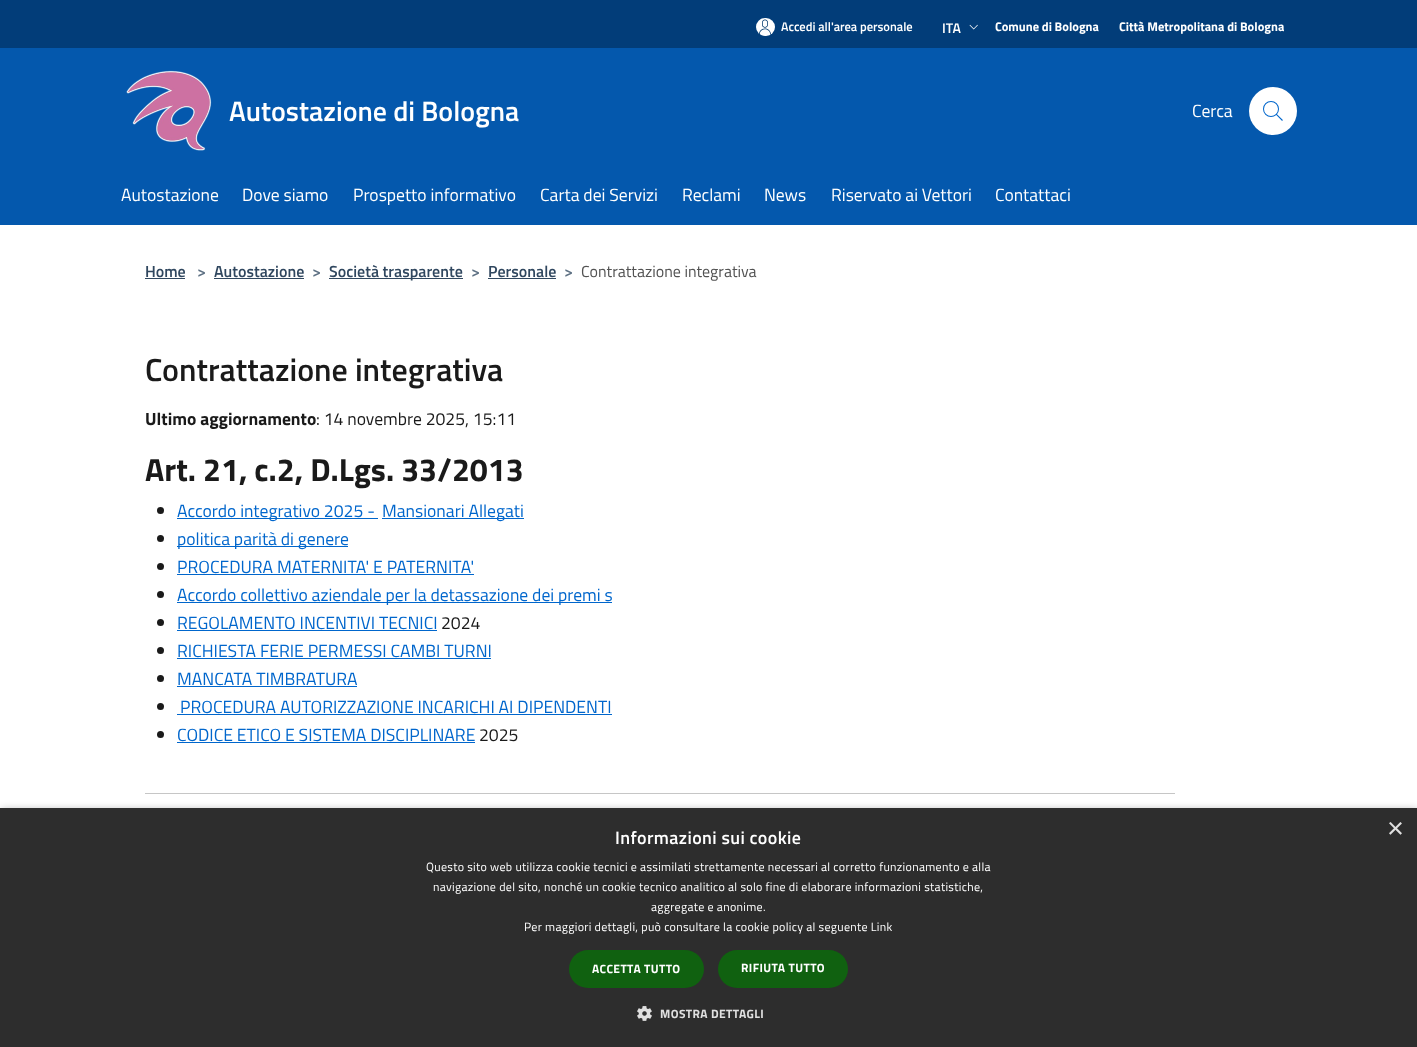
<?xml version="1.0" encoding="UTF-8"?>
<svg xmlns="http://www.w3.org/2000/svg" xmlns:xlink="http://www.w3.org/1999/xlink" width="1417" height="1047">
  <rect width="100%" height="100%" fill="#ffffff" />
  <rect width="1417" height="48" fill="#023d79" />
  <rect x="756" y="18" width="19" height="18" rx="9" fill="#ffffff" />
  <image x="759" y="19" width="12" height="16" xlink:href="image1.png" />
  <image x="969" y="24" width="9" height="6" xlink:href="image2.png" />
  <rect y="48" width="1417" height="177" fill="#0458ad" />
  <image x="126" y="70" width="86" height="81" xlink:href="image3.png" />
  <circle cx="1273" cy="111" r="24" fill="#ffffff" />
  <image x="1263" y="101" width="20" height="20" xlink:href="image4.png" />
  <rect x="145" y="278" width="40" height="1" fill="#30475f" />
  <rect x="214" y="278" width="90" height="1" fill="#30475f" />
  <rect x="329" y="278" width="134" height="1" fill="#30475f" />
  <rect x="488" y="278" width="68" height="1" fill="#30475f" />
  <circle cx="160.5" cy="510.5" r="3.5" fill="#1a1a1a" />
  <rect x="177" y="518" width="201" height="1" fill="#0066cc" />
  <rect x="382" y="518" width="142" height="1" fill="#0066cc" />
  <circle cx="160.5" cy="538.5" r="3.5" fill="#1a1a1a" />
  <rect x="177" y="546" width="171" height="1" fill="#0066cc" />
  <circle cx="160.5" cy="566.5" r="3.5" fill="#1a1a1a" />
  <rect x="177" y="574" width="297" height="1" fill="#0066cc" />
  <circle cx="160.5" cy="594.5" r="3.5" fill="#1a1a1a" />
  <rect x="177" y="602" width="435" height="1" fill="#0066cc" />
  <circle cx="160.5" cy="622.5" r="3.5" fill="#1a1a1a" />
  <rect x="177" y="630" width="260" height="1" fill="#0066cc" />
  <circle cx="160.5" cy="650.5" r="3.5" fill="#1a1a1a" />
  <rect x="177" y="658" width="314" height="1" fill="#0066cc" />
  <circle cx="160.5" cy="678.5" r="3.5" fill="#1a1a1a" />
  <rect x="177" y="686" width="180" height="1" fill="#0066cc" />
  <circle cx="160.5" cy="706.5" r="3.5" fill="#1a1a1a" />
  <rect x="177" y="714" width="435" height="1" fill="#0066cc" />
  <circle cx="160.5" cy="734.5" r="3.5" fill="#1a1a1a" />
  <rect x="177" y="742" width="298" height="1" fill="#0066cc" />
  <rect x="145" y="793" width="1030" height="1" fill="#c6c6c6" />
  <rect x="1" y="810" width="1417" height="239" fill="#000000" fill-opacity="0.35" filter="blur(4px)" />
  <rect y="808" width="1417" height="239" fill="#2d2d2d" />
  <rect x="569" y="950" width="135" height="38" rx="19" fill="#106110" />
  <rect x="718" y="950" width="130" height="38" rx="19" fill="#106110" />
  <image x="637" y="1006" width="15" height="15" xlink:href="image5.png" />
  <text x="781" y="31" style="font-family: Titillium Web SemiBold; font-size: 12.5px; font-weight: 600; fill: #ffffff">Accedi all'area personale</text>
  <text x="942" y="33" style="font-family: Titillium Web SemiBold; font-size: 14px; font-weight: 600; fill: #ffffff">ITA</text>
  <text x="995" y="31" style="font-family: Titillium Web; font-size: 12.5px; font-weight: bold; fill: #ffffff">Comune di Bologna</text>
  <text x="1119" y="31" style="font-family: Titillium Web; font-size: 12.5px; font-weight: bold; fill: #ffffff">Città Metropolitana di Bologna</text>
  <text x="229" y="121" style="font-family: Titillium Web SemiBold; font-size: 28px; font-weight: 600; fill: #ffffff">Autostazione di Bologna</text>
  <text x="1192" y="117" style="font-family: Titillium Web; font-size: 17.6px; fill: #ffffff">Cerca</text>
  <text x="121" y="201" style="font-family: Titillium Web; font-size: 17.6px; fill: #ffffff">Autostazione</text>
  <text x="242" y="201" style="font-family: Titillium Web; font-size: 17.6px; fill: #ffffff">Dove siamo</text>
  <text x="353" y="201" style="font-family: Titillium Web; font-size: 17.6px; fill: #ffffff">Prospetto informativo</text>
  <text x="540" y="201" style="font-family: Titillium Web; font-size: 17.6px; fill: #ffffff">Carta dei Servizi</text>
  <text x="682" y="201" style="font-family: Titillium Web; font-size: 17.6px; fill: #ffffff">Reclami</text>
  <text x="764" y="201" style="font-family: Titillium Web; font-size: 17.6px; fill: #ffffff">News</text>
  <text x="831" y="201" style="font-family: Titillium Web; font-size: 17.6px; fill: #ffffff">Riservato ai Vettori</text>
  <text x="995" y="201" style="font-family: Titillium Web; font-size: 17.6px; fill: #ffffff">Contattaci</text>
  <text x="145" y="277" style="font-family: Titillium Web SemiBold; font-size: 16px; font-weight: 600; fill: #30475f">Home</text>
  <text x="197" y="277" style="font-family: Titillium Web SemiBold; font-size: 16px; font-weight: 600; fill: #5d7083">&gt;</text>
  <text x="214" y="277" style="font-family: Titillium Web SemiBold; font-size: 16px; font-weight: 600; fill: #30475f">Autostazione</text>
  <text x="312" y="277" style="font-family: Titillium Web SemiBold; font-size: 16px; font-weight: 600; fill: #5d7083">&gt;</text>
  <text x="329" y="277" style="font-family: Titillium Web SemiBold; font-size: 16px; font-weight: 600; fill: #30475f">Società trasparente</text>
  <text x="471" y="277" style="font-family: Titillium Web SemiBold; font-size: 16px; font-weight: 600; fill: #5d7083">&gt;</text>
  <text x="488" y="277" style="font-family: Titillium Web SemiBold; font-size: 16px; font-weight: 600; fill: #30475f">Personale</text>
  <text x="564" y="277" style="font-family: Titillium Web SemiBold; font-size: 16px; font-weight: 600; fill: #5d7083">&gt;</text>
  <text x="581" y="277" style="font-family: Titillium Web; font-size: 16px; fill: #525252">Contrattazione integrativa</text>
  <text x="145" y="381" style="font-family: Titillium Web SemiBold; font-size: 32px; font-weight: 600; fill: #1a1a1a">Contrattazione integrativa</text>
  <text x="145" y="425" style="font-family: Titillium Web; font-size: 17.6px; font-weight: bold; fill: #1a1a1a">Ultimo aggiornamento</text>
  <text x="316" y="425" style="font-family: Titillium Web; font-size: 17.6px; fill: #1a1a1a">: 14 novembre 2025, 15:11</text>
  <text x="145" y="481" style="font-family: Titillium Web; font-size: 32px; font-weight: bold; fill: #1a1a1a">Art. 21, c.2, D.Lgs. 33/2013</text>
  <text x="177" y="517" style="font-family: Titillium Web; font-size: 17.6px; fill: #0066cc">Accordo integrativo 2025 -</text>
  <text x="382" y="517" style="font-family: Titillium Web; font-size: 17.6px; fill: #0066cc">Mansionari Allegati</text>
  <text x="177" y="545" style="font-family: Titillium Web; font-size: 17.6px; fill: #0066cc">politica parità di genere</text>
  <text x="177" y="573" style="font-family: Titillium Web; font-size: 17.6px; fill: #0066cc">PROCEDURA MATERNITA' E PATERNITA'</text>
  <text x="177" y="601" style="font-family: Titillium Web; font-size: 17.6px; fill: #0066cc">Accordo collettivo aziendale per la detassazione dei premi s</text>
  <text x="177" y="629" style="font-family: Titillium Web; font-size: 17.6px; fill: #0066cc">REGOLAMENTO INCENTIVI TECNICI</text>
  <text x="441" y="629" style="font-family: Titillium Web; font-size: 17.6px; fill: #1a1a1a">2024</text>
  <text x="177" y="657" style="font-family: Titillium Web; font-size: 17.6px; fill: #0066cc">RICHIESTA FERIE PERMESSI CAMBI TURNI</text>
  <text x="177" y="685" style="font-family: Titillium Web; font-size: 17.6px; fill: #0066cc">MANCATA TIMBRATURA</text>
  <text x="180" y="713" style="font-family: Titillium Web; font-size: 17.6px; fill: #0066cc">PROCEDURA AUTORIZZAZIONE INCARICHI AI DIPENDENTI</text>
  <text x="177" y="741" style="font-family: Titillium Web; font-size: 17.6px; fill: #0066cc">CODICE ETICO E SISTEMA DISCIPLINARE</text>
  <text x="479" y="741" style="font-family: Titillium Web; font-size: 17.6px; fill: #1a1a1a">2025</text>
  <text x="1387" y="838" style="font-family: Liberation Sans; font-size: 29px; fill: #e0e0e0">×</text>
  <text x="615" y="844" style="font-family: Titillium Web SemiBold; font-size: 18px; font-weight: 600; letter-spacing: 0.4px; fill: #ffffff">Informazioni sui cookie</text>
  <text x="426" y="871" style="font-family: Titillium Web; font-size: 12px; letter-spacing: 0.3px; fill: #ffffff">Questo sito web utilizza cookie tecnici e assimilati strettamente necessari al corretto funzionamento e alla</text>
  <text x="433" y="891" style="font-family: Titillium Web; font-size: 12px; letter-spacing: 0.3px; fill: #ffffff">navigazione del sito, nonché un cookie tecnico analitico al solo fine di elaborare informazioni statistiche,</text>
  <text x="651" y="911" style="font-family: Titillium Web; font-size: 12px; letter-spacing: 0.3px; fill: #ffffff">aggregate e anonime.</text>
  <text x="524" y="931" style="font-family: Titillium Web; font-size: 12px; letter-spacing: 0.3px; fill: #ffffff">Per maggiori dettagli, può consultare la cookie policy al seguente Link</text>
  <text x="592" y="973" style="font-family: Titillium Web; font-size: 12px; font-weight: bold; letter-spacing: 0.4px; fill: #ffffff">ACCETTA TUTTO</text>
  <text x="741" y="972" style="font-family: Titillium Web; font-size: 12px; font-weight: bold; letter-spacing: 0.4px; fill: #ffffff">RIFIUTA TUTTO</text>
  <text x="660" y="1018" style="font-family: Titillium Web; font-size: 12px; font-weight: bold; letter-spacing: 0.4px; fill: #e0e0e0">MOSTRA DETTAGLI</text>
</svg>
